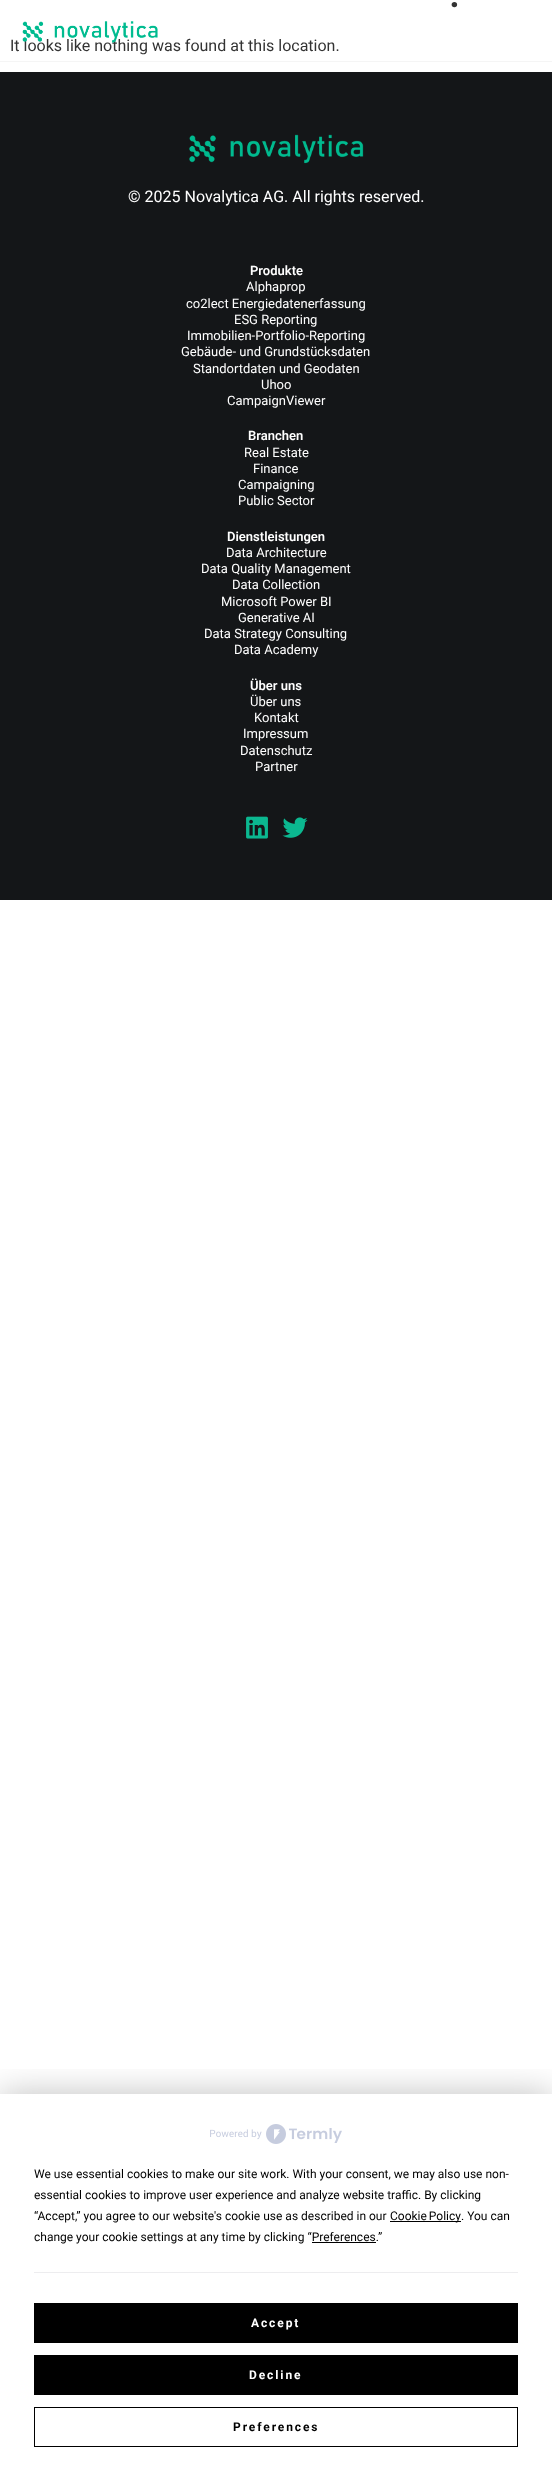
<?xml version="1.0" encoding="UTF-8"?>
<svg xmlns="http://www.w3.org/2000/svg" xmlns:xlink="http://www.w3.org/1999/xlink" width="552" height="2477">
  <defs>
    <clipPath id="clip1"><rect x="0" y="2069" width="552" height="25" /></clipPath>
  </defs>
  <rect width="100%" height="100%" fill="#ffffff" />
  <rect y="61" width="552" height="1" fill="#f5f5f5" />
  <rect y="72" width="552" height="828" fill="#141618" />
  <image x="189" y="134" width="175" height="30" xlink:href="image2.png" />
  <image x="246" y="816" width="22" height="23" xlink:href="image3.png" />
  <image x="282" y="817" width="26" height="21" xlink:href="image4.png" />
  <g clip-path="url(#clip1)">
    <rect y="2094" width="552" height="383" fill="#000000" fill-opacity="0.25" filter="blur(17.5px)" />
  </g>
  <image x="210" y="2124" width="132" height="20" xlink:href="image5.png" />
  <rect x="390" y="2221" width="71" height="1" fill="#000000" />
  <rect x="312" y="2242" width="64" height="1" fill="#000000" />
  <rect x="34" y="2272" width="484" height="1" fill="#ededef" />
  <rect x="34" y="2303" width="484" height="40" fill="#000000" />
  <rect x="34" y="2355" width="484" height="40" fill="#000000" />
  <rect x="34.5" y="2407.5" width="483" height="39" fill="none" stroke="#000000" />
  <text x="449" y="7" style="font-family: Roboto; font-size: 40px; font-weight: 500; fill: #333333">.</text>
  <text x="10" y="51" style="font-family: Roboto; font-size: 16px; fill: #333333">It looks like nothing was found at this location.</text>
  <image x="22" y="21" width="136" height="22" xlink:href="image1.png" />
  <text x="128" y="202" style="font-family: Roboto; font-size: 16px; fill: #ffffff">© 2025 Novalytica AG. All rights reserved.</text>
  <text x="250" y="275" style="font-family: Roboto; font-size: 13px; font-weight: 600; fill: #ffffff">Produkte</text>
  <text x="246" y="291" style="font-family: Roboto; font-size: 13px; fill: #ffffff">Alphaprop</text>
  <text x="186" y="308" style="font-family: Roboto; font-size: 13px; fill: #ffffff">co2lect Energiedatenerfassung</text>
  <text x="234" y="324" style="font-family: Roboto; font-size: 13px; fill: #ffffff">ESG Reporting</text>
  <text x="187" y="340" style="font-family: Roboto; font-size: 13px; fill: #ffffff">Immobilien-Portfolio-Reporting</text>
  <text x="181" y="356" style="font-family: Roboto; font-size: 13px; fill: #ffffff">Gebäude- und Grundstücksdaten</text>
  <text x="193" y="373" style="font-family: Roboto; font-size: 13px; fill: #ffffff">Standortdaten und Geodaten</text>
  <text x="261" y="389" style="font-family: Roboto; font-size: 13px; fill: #ffffff">Uhoo</text>
  <text x="227" y="405" style="font-family: Roboto; font-size: 13px; fill: #ffffff">CampaignViewer</text>
  <text x="248" y="440" style="font-family: Roboto; font-size: 13px; font-weight: 600; fill: #ffffff">Branchen</text>
  <text x="244" y="457" style="font-family: Roboto; font-size: 13px; fill: #ffffff">Real Estate</text>
  <text x="253" y="473" style="font-family: Roboto; font-size: 13px; fill: #ffffff">Finance</text>
  <text x="238" y="489" style="font-family: Roboto; font-size: 13px; fill: #ffffff">Campaigning</text>
  <text x="238" y="505" style="font-family: Roboto; font-size: 13px; fill: #ffffff">Public Sector</text>
  <text x="227" y="541" style="font-family: Roboto; font-size: 13px; font-weight: 600; fill: #ffffff">Dienstleistungen</text>
  <text x="226" y="557" style="font-family: Roboto; font-size: 13px; fill: #ffffff">Data Architecture</text>
  <text x="201" y="573" style="font-family: Roboto; font-size: 13px; fill: #ffffff">Data Quality Management</text>
  <text x="232" y="589" style="font-family: Roboto; font-size: 13px; fill: #ffffff">Data Collection</text>
  <text x="221" y="606" style="font-family: Roboto; font-size: 13px; fill: #ffffff">Microsoft Power BI</text>
  <text x="238" y="622" style="font-family: Roboto; font-size: 13px; fill: #ffffff">Generative AI</text>
  <text x="204" y="638" style="font-family: Roboto; font-size: 13px; fill: #ffffff">Data Strategy Consulting</text>
  <text x="234" y="654" style="font-family: Roboto; font-size: 13px; fill: #ffffff">Data Academy</text>
  <text x="250" y="690" style="font-family: Roboto; font-size: 13px; font-weight: 600; fill: #ffffff">Über uns</text>
  <text x="250" y="706" style="font-family: Roboto; font-size: 13px; fill: #ffffff">Über uns</text>
  <text x="254" y="722" style="font-family: Roboto; font-size: 13px; fill: #ffffff">Kontakt</text>
  <text x="243" y="738" style="font-family: Roboto; font-size: 13px; fill: #ffffff">Impressum</text>
  <text x="240" y="755" style="font-family: Roboto; font-size: 13px; fill: #ffffff">Datenschutz</text>
  <text x="255" y="771" style="font-family: Roboto; font-size: 13px; fill: #ffffff">Partner</text>
  <text x="34" y="2178" style="font-family: Roboto; font-size: 12px; fill: #000000">We use essential cookies to make our site work. With your consent, we may also use non-</text>
  <text x="34" y="2199" style="font-family: Roboto; font-size: 12px; fill: #000000">essential cookies to improve user experience and analyze website traffic. By clicking</text>
  <text x="34" y="2220" style="font-family: Roboto; font-size: 12px; fill: #000000">“Accept,” you agree to our website's cookie use as described in our</text>
  <text x="390" y="2220" word-spacing="-1" style="font-family: Roboto; font-size: 12px; fill: #000000">Cookie Policy</text>
  <text x="461" y="2220" style="font-family: Roboto; font-size: 12px; fill: #000000">. You can</text>
  <text x="34" y="2241" style="font-family: Roboto; font-size: 12px; fill: #000000">change your cookie settings at any time by clicking “Preferences.”</text>
  <text x="251" y="2327" style="font-family: Roboto; font-size: 12px; font-weight: bold; letter-spacing: 1.9px; fill: #ffffff">Accept</text>
  <text x="249" y="2379" style="font-family: Roboto; font-size: 12px; font-weight: bold; letter-spacing: 1.9px; fill: #ffffff">Decline</text>
  <text x="233" y="2431" style="font-family: Roboto; font-size: 12px; font-weight: bold; letter-spacing: 1.9px; fill: #000000">Preferences</text>
</svg>
